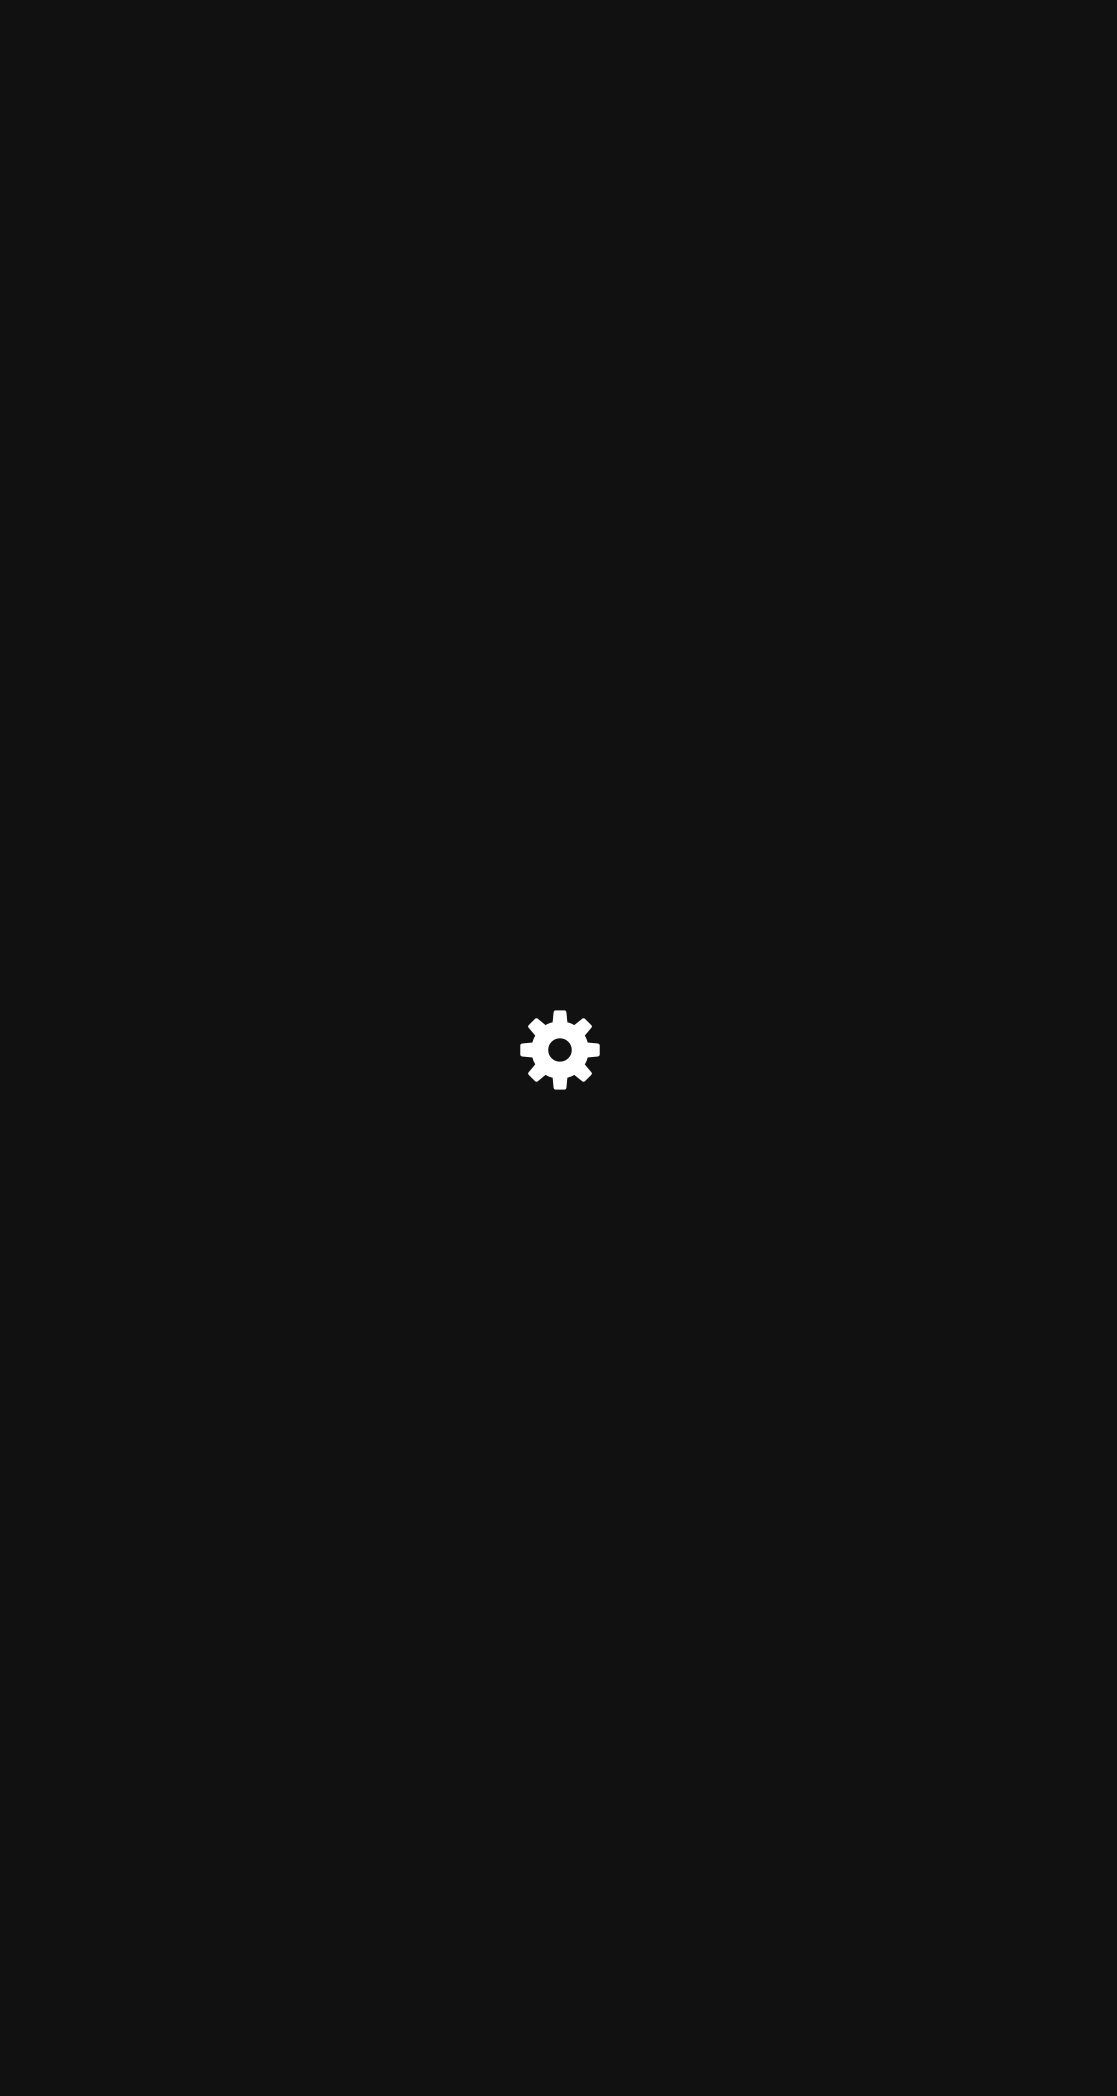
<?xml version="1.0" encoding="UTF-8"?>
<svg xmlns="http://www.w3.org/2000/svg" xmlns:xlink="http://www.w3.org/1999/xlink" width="1117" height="2096">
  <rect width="100%" height="100%" fill="#111111" />
  <image x="520" y="1010" width="80" height="80" xlink:href="image1.png" />
</svg>
